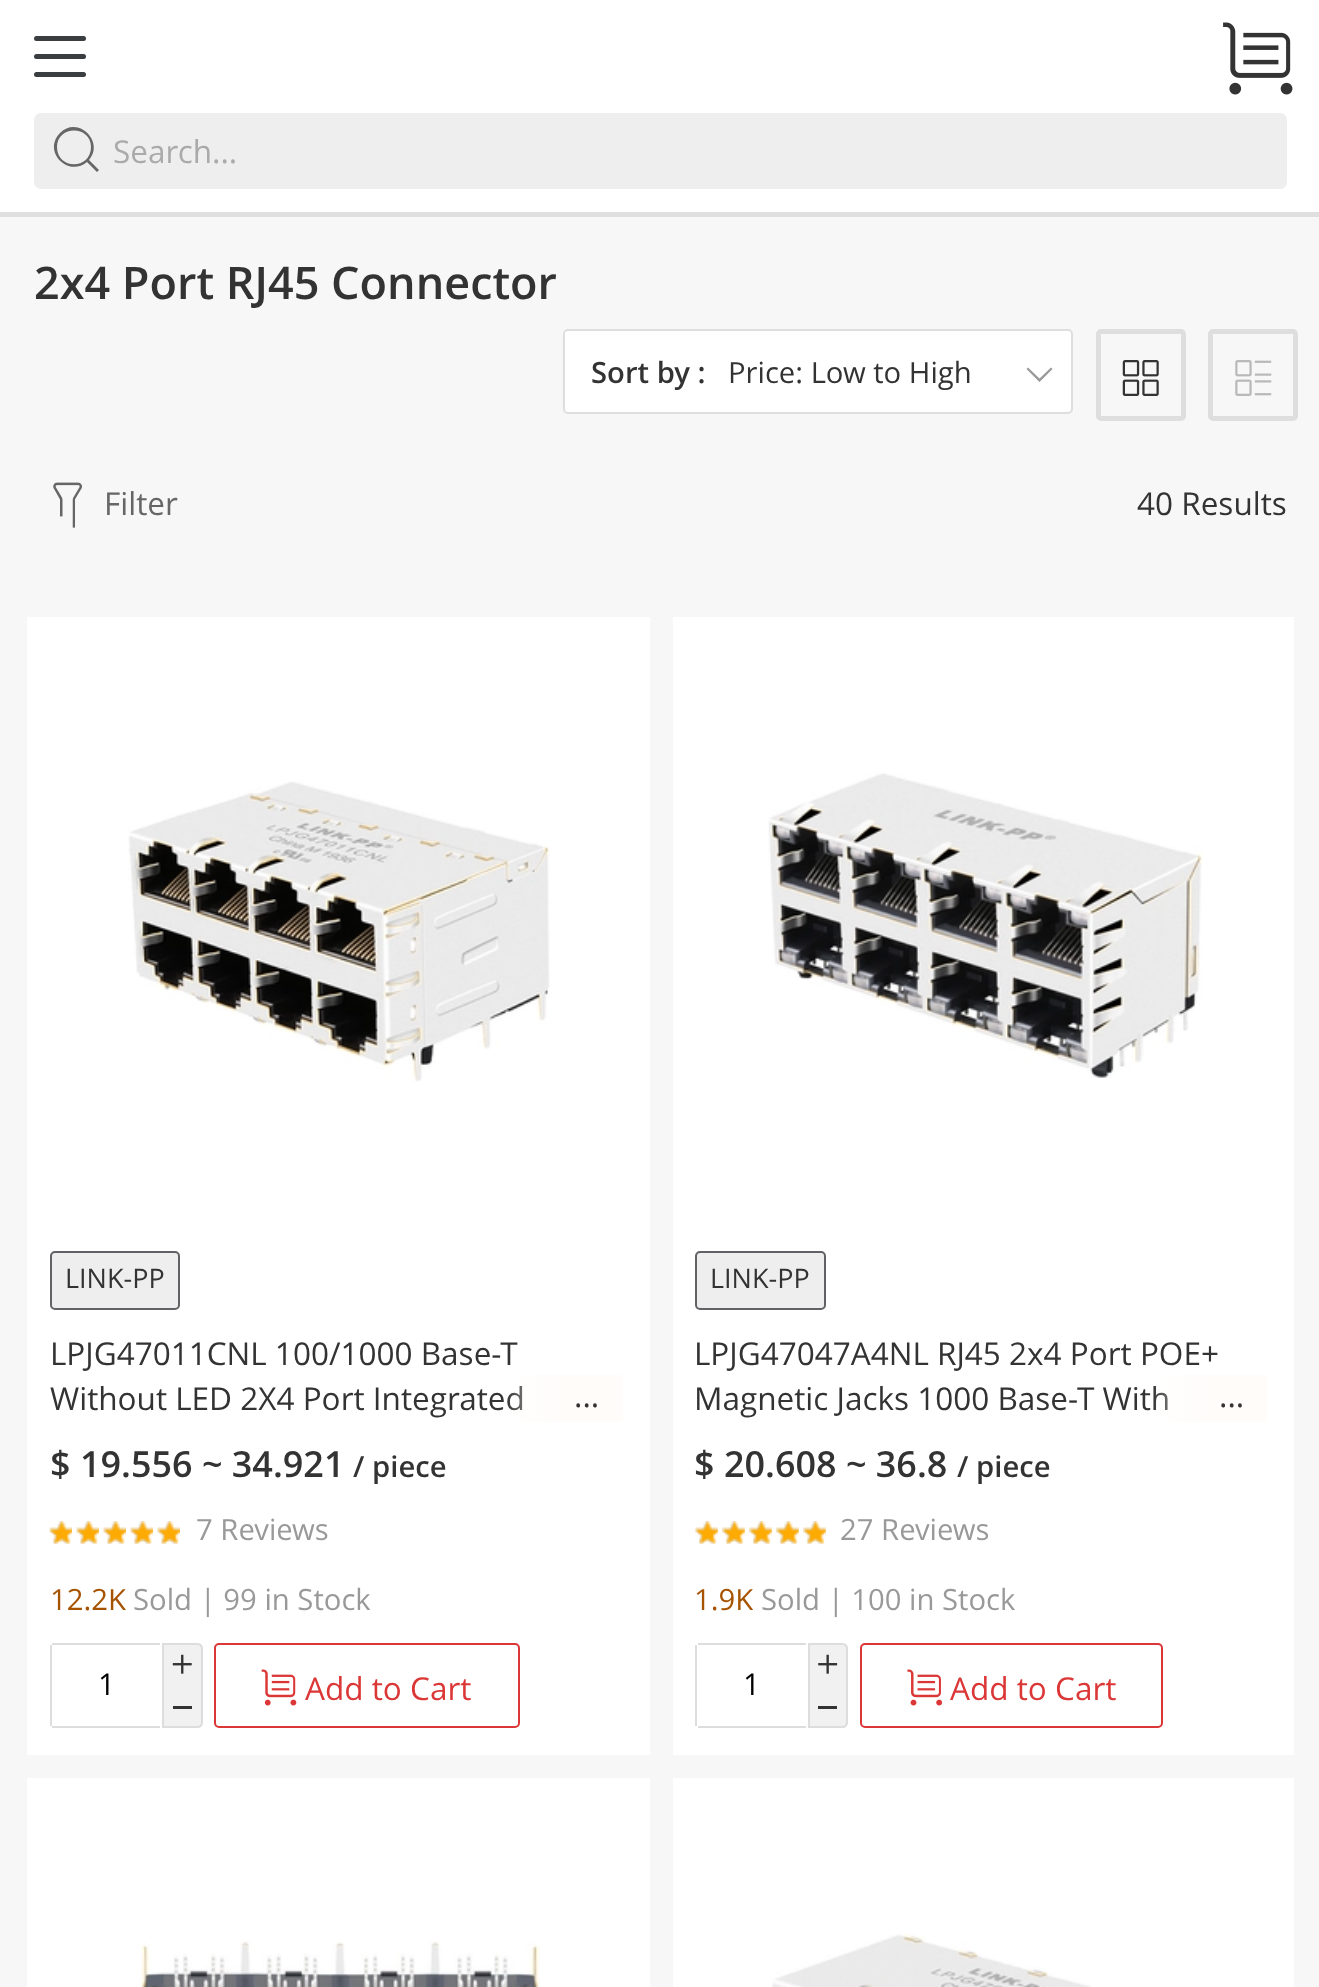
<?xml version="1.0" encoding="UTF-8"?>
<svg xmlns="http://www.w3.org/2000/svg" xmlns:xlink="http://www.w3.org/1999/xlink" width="1319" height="1987">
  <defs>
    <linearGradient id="g1" gradientUnits="userSpaceOnUse" x1="506" y1="1398" x2="623" y2="1398"><stop offset="0" stop-color="#fffcfa" stop-opacity="0" /><stop offset="0.5" stop-color="#fffcfa" /></linearGradient>
    <linearGradient id="g2" gradientUnits="userSpaceOnUse" x1="1152" y1="1398" x2="1267" y2="1398"><stop offset="0" stop-color="#fffcfa" stop-opacity="0" /><stop offset="0.5" stop-color="#fffcfa" /></linearGradient>
  </defs>
  <rect width="100%" height="100%" fill="#ffffff" />
  <rect y="212" width="1319" height="5" fill="#dfdfdf" />
  <rect x="34" y="36" width="52" height="5" rx="2.5" fill="#3b3e40" />
  <rect x="34" y="54" width="52" height="5" rx="2.5" fill="#3b3e40" />
  <rect x="34" y="72" width="52" height="5" rx="2.5" fill="#3b3e40" />
  <image x="1223" y="22" width="70" height="73" xlink:href="image1.png" />
  <rect x="34" y="113" width="1253" height="76" rx="7" fill="#eeeeee" />
  <path d="M 99 170 l -10 -10 c 16 -18 -11 -45 -29 -27 c -18 18 8 45 27 29 l 10 10 z m -42 -23 c 0 -22 34 -22 34 0 c 0 23 -34 23 -34 0 z" fill="#666666" />
  <rect y="217" width="1319" height="1770" fill="#f7f7f7" />
  <rect x="564" y="330" width="508" height="83" rx="4" fill="#ffffff" stroke="#dedede" stroke-width="2" />
  <path d="M 1039.5 382 l -13 -13 l 1.5 -1.5 l 11.5 11 l 11.5 -11 l 1.5 1.5 z" fill="#999999" />
  <rect x="1098.5" y="331.5" width="85" height="87" rx="2.5" fill="none" stroke="#dedede" stroke-width="5" />
  <image x="1122" y="360" width="37" height="36" xlink:href="image2.png" />
  <rect x="1210.5" y="331.5" width="85" height="87" rx="2.5" fill="none" stroke="#dedede" stroke-width="5" />
  <image x="1235" y="360" width="37" height="36" xlink:href="image3.png" />
  <image x="53" y="482" width="30" height="46" xlink:href="image4.png" />
  <rect x="27" y="617" width="623" height="1138" fill="#ffffff" />
  <image x="128" y="781" width="422" height="301" xlink:href="image5.png" />
  <rect x="51" y="1252" width="128" height="57" rx="4" fill="#eeeeee" stroke="#616265" stroke-width="2" />
  <image x="49" y="1521" width="23" height="23" xlink:href="image6.png" />
  <image x="49" y="1521" width="23" height="23" xlink:href="image7.png" />
  <image x="76" y="1521" width="23" height="23" xlink:href="image8.png" />
  <image x="76" y="1521" width="23" height="23" xlink:href="image9.png" />
  <image x="103" y="1521" width="23" height="23" xlink:href="image8.png" />
  <image x="103" y="1521" width="23" height="23" xlink:href="image9.png" />
  <image x="130" y="1521" width="23" height="23" xlink:href="image8.png" />
  <image x="130" y="1521" width="23" height="23" xlink:href="image9.png" />
  <image x="157" y="1521" width="23" height="23" xlink:href="image8.png" />
  <image x="157" y="1521" width="23" height="23" xlink:href="image10.png" />
  <rect x="52" y="1643" width="108" height="2" fill="#dddddd" />
  <rect x="52" y="1726" width="108" height="2" fill="#dddddd" />
  <rect x="50" y="1645" width="2" height="81" fill="#dddddd" />
  <path d="M 163 1644 h 35 c 2 0 4 2 4 4 v 75 c 0 2 -2 4 -4 4 h -35 z" fill="#f1f1f1" stroke="#dddddd" stroke-width="2" />
  <image x="172" y="1654" width="20" height="20" xlink:href="image11.png" />
  <rect x="173" y="1706" width="19" height="3" fill="#333333" />
  <rect x="215" y="1644" width="304" height="83" rx="4" fill="none" stroke="#dc3737" stroke-width="2" />
  <image x="261" y="1669" width="36" height="37" xlink:href="image12.png" />
  <rect x="673" y="617" width="621" height="1138" fill="#ffffff" />
  <image x="768" y="773" width="435" height="305" xlink:href="image13.png" />
  <rect x="696" y="1252" width="129" height="57" rx="4" fill="#eeeeee" stroke="#616265" stroke-width="2" />
  <image x="695" y="1521" width="23" height="23" xlink:href="image14.png" />
  <image x="695" y="1521" width="23" height="23" xlink:href="image15.png" />
  <image x="722" y="1521" width="23" height="23" xlink:href="image16.png" />
  <image x="722" y="1521" width="23" height="23" xlink:href="image17.png" />
  <image x="749" y="1521" width="23" height="23" xlink:href="image18.png" />
  <image x="749" y="1521" width="23" height="23" xlink:href="image19.png" />
  <image x="776" y="1521" width="23" height="23" xlink:href="image18.png" />
  <image x="776" y="1521" width="23" height="23" xlink:href="image20.png" />
  <image x="803" y="1521" width="23" height="23" xlink:href="image18.png" />
  <image x="803" y="1521" width="23" height="23" xlink:href="image20.png" />
  <rect x="698" y="1643" width="108" height="2" fill="#dddddd" />
  <rect x="698" y="1726" width="108" height="2" fill="#dddddd" />
  <rect x="695" y="1645" width="2" height="81" fill="#dddddd" />
  <path d="M 809 1644 h 34 c 2 0 4 2 4 4 v 75 c 0 2 -2 4 -4 4 h -34 z" fill="#f1f1f1" stroke="#dddddd" stroke-width="2" />
  <image x="818" y="1654" width="20" height="20" xlink:href="image21.png" />
  <rect x="818" y="1706" width="19" height="3" fill="#333333" />
  <rect x="861" y="1644" width="301" height="83" rx="4" fill="none" stroke="#dc3737" stroke-width="2" />
  <image x="907" y="1669" width="36" height="37" xlink:href="image22.png" />
  <rect x="27" y="1778" width="623" height="209" fill="#ffffff" />
  <image x="140" y="1940" width="400" height="47" xlink:href="image23.png" />
  <rect x="673" y="1778" width="621" height="209" fill="#ffffff" />
  <image x="772" y="1933" width="319" height="54" xlink:href="image24.png" />
  <text x="113" y="163" style="font-family: Open Sans; font-size: 31.5px; fill: #aaaaaa">Search...</text>
  <text x="34" y="299" style="font-family: Open Sans; font-size: 45px; font-weight: 600; fill: #333333">2x4 Port RJ45 Connector</text>
  <text x="591" y="383" style="font-family: Open Sans; font-size: 29.25px; font-weight: 600; fill: #333333">Sort by :</text>
  <text x="728" y="383" style="font-family: Open Sans; font-size: 29.25px; fill: #333333">Price: Low to High</text>
  <text x="104" y="515" style="font-family: Open Sans; font-size: 31.5px; fill: #666666">Filter</text>
  <text x="1137" y="515" style="font-family: Open Sans; font-size: 31.5px; fill: #333333">40 Results</text>
  <text x="65" y="1288" style="font-family: Open Sans; font-size: 27px; fill: #333333">LINK-PP</text>
  <text x="50" y="1365" style="font-family: Open Sans; font-size: 31.5px; fill: #333333">LPJG47011CNL 100/1000 Base-T</text>
  <text x="50" y="1410" style="font-family: Open Sans; font-size: 31.5px; fill: #333333">Without LED 2X4 Port Integrated</text>
  <rect x="507" y="1375" width="116" height="47" fill="url(#g1)" />
  <text x="574" y="1407" style="font-family: Open Sans; font-size: 31.5px; fill: #333333">...</text>
  <text x="50" y="1477" style="font-family: Open Sans; font-size: 36px; font-weight: 600; fill: #333333">$ 19.556 ~ 34.921</text>
  <text x="353" y="1477" style="font-family: Open Sans; font-size: 29.25px; font-weight: 600; fill: #333333">/ piece</text>
  <text x="196" y="1540" style="font-family: Open Sans; font-size: 29.25px; fill: #999999">7 Reviews</text>
  <text x="50" y="1610" style="font-family: Open Sans; font-size: 29.25px; fill: #a65300">12.2K</text>
  <text x="133" y="1610" style="font-family: Open Sans; font-size: 29.25px; fill: #999999">Sold | 99 in Stock</text>
  <text x="98" y="1695" style="font-family: Open Sans; font-size: 30px; fill: #000000">1</text>
  <text x="305" y="1700" style="font-family: Open Sans; font-size: 31.5px; fill: #dc3737">Add to Cart</text>
  <text x="710" y="1288" style="font-family: Open Sans; font-size: 27px; fill: #333333">LINK-PP</text>
  <text x="694" y="1365" style="font-family: Open Sans; font-size: 31.5px; fill: #333333">LPJG47047A4NL RJ45 2x4 Port POE+</text>
  <text x="694" y="1410" style="font-family: Open Sans; font-size: 31.5px; fill: #333333">Magnetic Jacks 1000 Base-T With</text>
  <rect x="1154" y="1375" width="113" height="47" fill="url(#g2)" />
  <text x="1219" y="1407" style="font-family: Open Sans; font-size: 31.5px; fill: #333333">...</text>
  <text x="694" y="1477" style="font-family: Open Sans; font-size: 36px; font-weight: 600; fill: #333333">$ 20.608 ~ 36.8</text>
  <text x="957" y="1477" style="font-family: Open Sans; font-size: 29.25px; font-weight: 600; fill: #333333">/ piece</text>
  <text x="840" y="1540" style="font-family: Open Sans; font-size: 29.25px; fill: #999999">27 Reviews</text>
  <text x="694" y="1610" style="font-family: Open Sans; font-size: 29.25px; fill: #a65300">1.9K</text>
  <text x="761" y="1610" style="font-family: Open Sans; font-size: 29.25px; fill: #999999">Sold | 100 in Stock</text>
  <text x="743" y="1695" style="font-family: Open Sans; font-size: 30px; fill: #000000">1</text>
  <text x="950" y="1700" style="font-family: Open Sans; font-size: 31.5px; fill: #dc3737">Add to Cart</text>
</svg>
